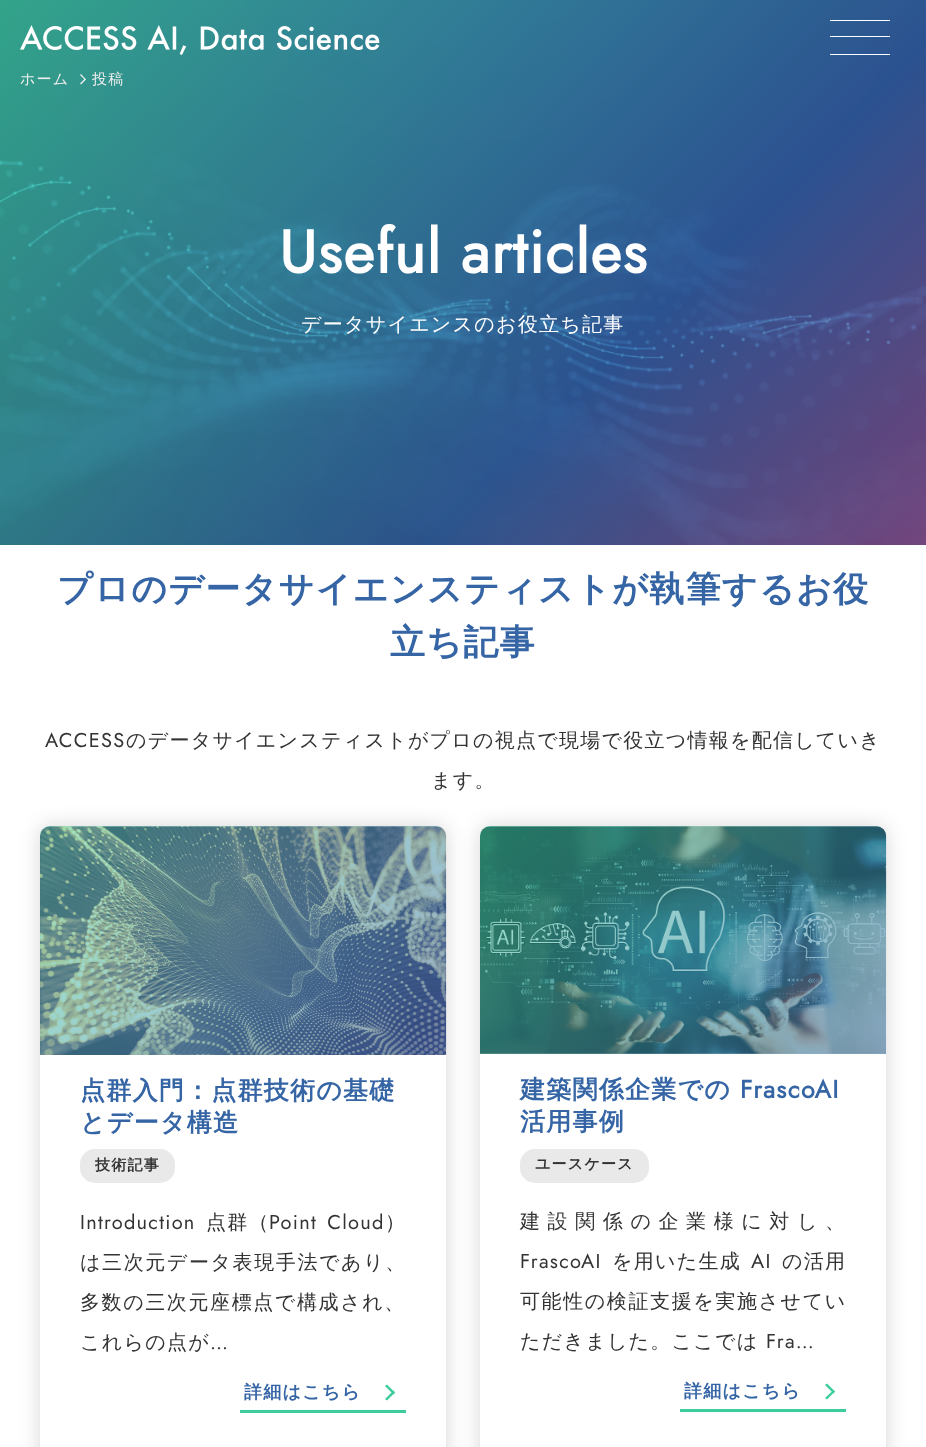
<?xml version="1.0" encoding="UTF-8"?>
<svg xmlns="http://www.w3.org/2000/svg" xmlns:xlink="http://www.w3.org/1999/xlink" width="926" height="1447">
  <defs>
    <linearGradient id="g1" gradientUnits="userSpaceOnUse" x1="402" y1="1099" x2="84" y2="782"><stop offset="0" stop-color="#3565a5" stop-opacity="0.5" /><stop offset="1" stop-color="#3dcd9d" stop-opacity="0.5" /></linearGradient>
    <linearGradient id="g2" gradientUnits="userSpaceOnUse" x1="842" y1="1098" x2="525" y2="782"><stop offset="0" stop-color="#3565a5" stop-opacity="0.5" /><stop offset="1" stop-color="#3dcd9d" stop-opacity="0.5" /></linearGradient>
  </defs>
  <rect width="100%" height="100%" fill="#ffffff" />
  <image x="0" y="0" width="926" height="545" xlink:href="image2.png" />
  <image x="20" y="25" width="360" height="30" xlink:href="image1.png" />
  <rect x="830" y="20" width="60" height="1" fill="#ffffff" />
  <rect x="830" y="36" width="60" height="1" fill="#ffffff" />
  <rect x="830" y="54" width="60" height="1" fill="#ffffff" />
  <path d="M 81 74 l 5 5.5 l -1 0.5 l -5 -5 z" fill="#eeeeee" />
  <path d="M 85 78.5 l 1 1 l -5 5 l -1 -1 z" fill="#eeeeee" />
  <rect x="40" y="826" width="406" height="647" rx="10" fill="#000000" fill-opacity="0.16" filter="blur(10px)" />
  <rect x="40" y="826" width="406" height="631" rx="10" fill="#ffffff" />
  <image x="40" y="826" width="407" height="229" xlink:href="image3.png" />
  <path d="M 50 826 h 386 c 5.5 0 10 4.5 10 10 v 219 h -406 v -219 c 0 -5.5 4.5 -10 10 -10 z" fill="url(#g1)" />
  <rect x="80" y="1149" width="95" height="34" rx="15" fill="#e9e9e9" />
  <path d="M 387 1384.5 l 8 8 l -1.5 2 l -8.5 -8.5 z" fill="#3dcd9d" />
  <path d="M 393.5 1390.5 l 1.5 2 l -8 8 l -2 -1.5 z" fill="#3dcd9d" />
  <rect x="240" y="1410" width="166" height="3" fill="#3dcd9d" />
  <rect x="480" y="826" width="406" height="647" rx="10" fill="#000000" fill-opacity="0.16" filter="blur(10px)" />
  <rect x="480" y="826" width="406" height="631" rx="10" fill="#ffffff" />
  <image x="480" y="826" width="407" height="228" xlink:href="image4.png" />
  <path d="M 490 826 h 386 c 5.5 0 10 4.5 10 10 v 218 h -406 v -218 c 0 -5.5 4.5 -10 10 -10 z" fill="url(#g2)" />
  <rect x="520" y="1149" width="129" height="34" rx="15" fill="#e9e9e9" />
  <path d="M 827 1383.5 l 8 8 l -1.5 2 l -8.5 -8.5 z" fill="#3dcd9d" />
  <path d="M 833.5 1390 l 1.5 1.5 l -8 8 l -2 -1.5 z" fill="#3dcd9d" />
  <rect x="680" y="1409" width="166" height="3" fill="#3dcd9d" />
  <text x="20" y="84" style="font-family: WenQuanYi Zen Hei; font-size: 15px; font-weight: 500; letter-spacing: 1.25px; fill: #eeeeee">ホーム</text>
  <text x="92" y="84" style="font-family: WenQuanYi Zen Hei; font-size: 15px; font-weight: 500; letter-spacing: 1.25px; fill: #eeeeee">投稿</text>
  <text x="279" y="273" style="font-family: Jost; font-size: 60px; font-weight: bold; letter-spacing: 1.25px; fill: #ffffff">Useful articles</text>
  <text x="301" y="331" style="font-family: WenQuanYi Zen Hei; font-size: 20px; font-weight: 500; letter-spacing: 1.25px; fill: #ffffff">データサイエンスのお役立ち記事</text>
  <text x="57" y="601" style="font-family: WenQuanYi Zen Hei; font-size: 35px; font-weight: bold; letter-spacing: 1.25px; fill: #3565a5">プロのデータサイエンスティストが執筆するお役</text>
  <text x="390" y="654" style="font-family: WenQuanYi Zen Hei; font-size: 35px; font-weight: bold; letter-spacing: 1.25px; fill: #3565a5">立ち記事</text>
  <text x="45" y="747" style="font-family: Jost; font-size: 20px; letter-spacing: 1.25px; fill: #333333">ACCESS</text>
  <text x="126" y="747" style="font-family: WenQuanYi Zen Hei; font-size: 20px; font-weight: 500; letter-spacing: 1.25px; fill: #333333">のデータサイエンスティストがプロの視点で現場で役立つ情報を配信していき</text>
  <text x="431" y="787" style="font-family: WenQuanYi Zen Hei; font-size: 20px; font-weight: 500; letter-spacing: 1.25px; fill: #333333">ます。</text>
  <text x="80" y="1099" style="font-family: WenQuanYi Zen Hei; font-size: 25px; font-weight: bold; letter-spacing: 1.25px; fill: #3565a5">点群入門：点群技術の基礎</text>
  <text x="80" y="1131" style="font-family: WenQuanYi Zen Hei; font-size: 25px; font-weight: bold; letter-spacing: 1.25px; fill: #3565a5">とデータ構造</text>
  <text x="95" y="1170" style="font-family: WenQuanYi Zen Hei; font-size: 15px; font-weight: bold; letter-spacing: 1.25px; fill: #333333">技術記事</text>
  <text x="80" y="1229" style="font-family: Jost; font-size: 20px; letter-spacing: 1.25px; fill: #333333">Introduction</text>
  <text x="206" y="1229" style="font-family: WenQuanYi Zen Hei; font-size: 20px; font-weight: 500; letter-spacing: 1.25px; fill: #333333">点群（</text>
  <text x="269" y="1229" word-spacing="3" style="font-family: Jost; font-size: 20px; letter-spacing: 1.25px; fill: #333333">Point Cloud</text>
  <text x="385" y="1229" style="font-family: WenQuanYi Zen Hei; font-size: 20px; font-weight: 500; letter-spacing: 1.25px; fill: #333333">）</text>
  <text x="80" y="1269" style="font-family: WenQuanYi Zen Hei; font-size: 20px; font-weight: 500; letter-spacing: 1.6px; fill: #333333">は三次元データ表現手法であり、</text>
  <text x="80" y="1309" style="font-family: WenQuanYi Zen Hei; font-size: 20px; font-weight: 500; letter-spacing: 1.6px; fill: #333333">多数の三次元座標点で構成され、</text>
  <text x="80" y="1349" style="font-family: WenQuanYi Zen Hei; font-size: 20px; font-weight: 500; letter-spacing: 1.25px; fill: #333333">これらの点が</text>
  <text x="210" y="1349" style="font-family: Jost; font-size: 20px; letter-spacing: 1.25px; fill: #333333">…</text>
  <text x="244" y="1398" style="font-family: WenQuanYi Zen Hei; font-size: 18px; font-weight: bold; letter-spacing: 1.25px; fill: #3565a5">詳細はこちら</text>
  <text x="520" y="1098" style="font-family: WenQuanYi Zen Hei; font-size: 25px; font-weight: bold; letter-spacing: 1.25px; fill: #3565a5">建築関係企業での</text>
  <text x="740" y="1098" style="font-family: Jost; font-size: 25px; font-weight: bold; letter-spacing: 1.25px; fill: #3565a5">FrascoAI</text>
  <text x="520" y="1130" style="font-family: WenQuanYi Zen Hei; font-size: 25px; font-weight: bold; letter-spacing: 1.25px; fill: #3565a5">活用事例</text>
  <text x="535" y="1169" style="font-family: WenQuanYi Zen Hei; font-size: 15px; font-weight: bold; letter-spacing: 1.25px; fill: #333333">ユースケース</text>
  <text x="520" y="1228" style="font-family: WenQuanYi Zen Hei; font-size: 20px; font-weight: 500; letter-spacing: 7.6px; fill: #333333">建設関係の企業様に対し、</text>
  <text x="520" y="1268" style="font-family: Jost; font-size: 20px; letter-spacing: 1.25px; fill: #333333">FrascoAI</text>
  <text x="612" y="1268" style="font-family: WenQuanYi Zen Hei; font-size: 20px; font-weight: 500; letter-spacing: 1.25px; fill: #333333">を用いた生成</text>
  <text x="751" y="1268" style="font-family: Jost; font-size: 20px; letter-spacing: 1.25px; fill: #333333">AI</text>
  <text x="782" y="1268" style="font-family: WenQuanYi Zen Hei; font-size: 20px; font-weight: 500; letter-spacing: 1.25px; fill: #333333">の活用</text>
  <text x="520" y="1308" style="font-family: WenQuanYi Zen Hei; font-size: 20px; font-weight: 500; letter-spacing: 1.6px; fill: #333333">可能性の検証支援を実施させてい</text>
  <text x="520" y="1348" style="font-family: WenQuanYi Zen Hei; font-size: 20px; font-weight: 500; letter-spacing: 1.25px; fill: #333333">ただきました。ここでは</text>
  <text x="766" y="1348" style="font-family: Jost; font-size: 20px; letter-spacing: 1.25px; fill: #333333">Fra…</text>
  <text x="684" y="1397" style="font-family: WenQuanYi Zen Hei; font-size: 18px; font-weight: bold; letter-spacing: 1.25px; fill: #3565a5">詳細はこちら</text>
</svg>
